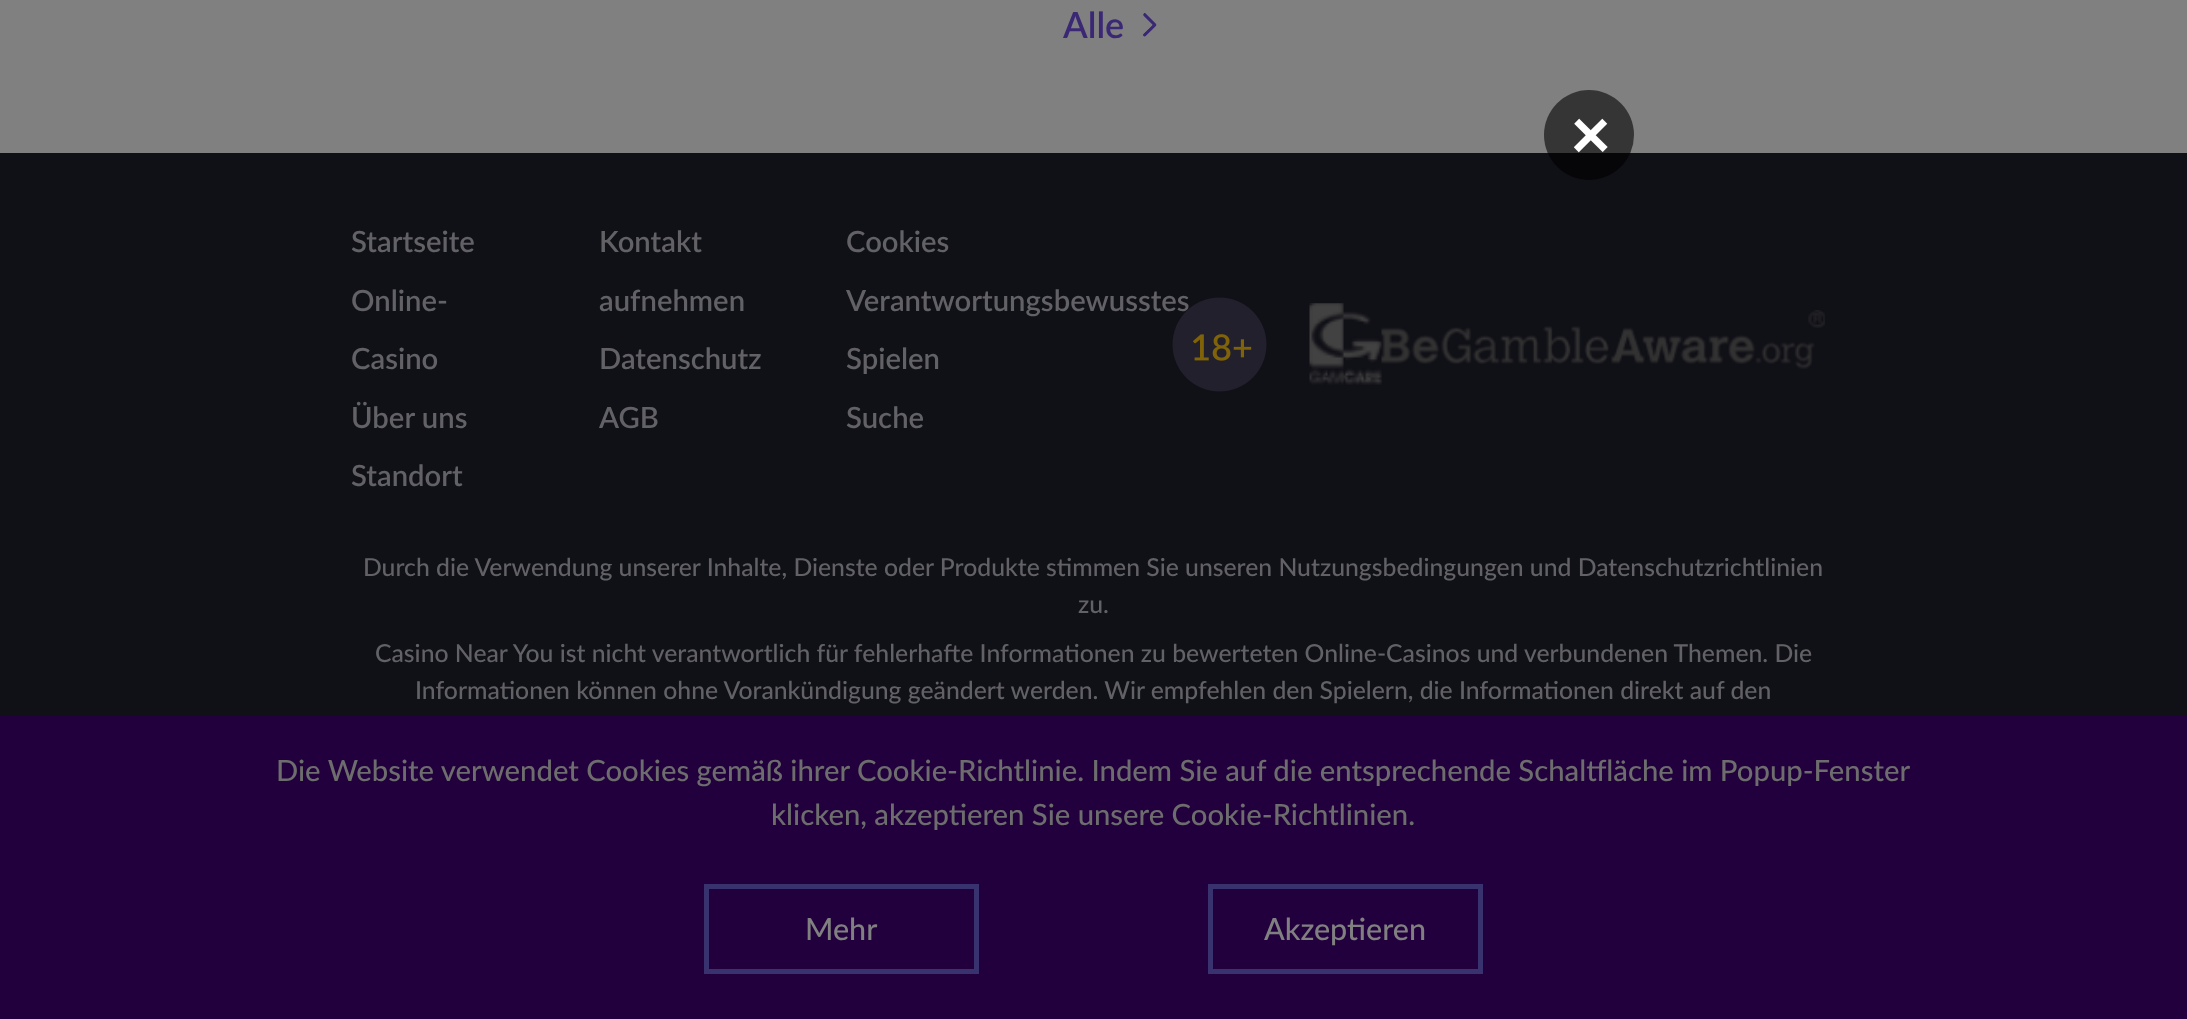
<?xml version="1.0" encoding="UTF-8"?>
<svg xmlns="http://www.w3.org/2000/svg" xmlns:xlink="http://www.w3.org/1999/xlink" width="2187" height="1019">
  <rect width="100%" height="100%" fill="#808080" />
  <image x="1143" y="13" width="14" height="24" xlink:href="image1.png" />
  <rect y="153" width="2187" height="563" fill="#101017" />
  <circle cx="1589" cy="135" r="45" fill="#000000" fill-opacity="0.59" />
  <image x="1309" y="303" width="73" height="82" xlink:href="image3.png" />
  <image x="1381" y="310" width="444" height="59" xlink:href="image4.png" />
  <rect y="716" width="2187" height="303" fill="#22003d" />
  <rect x="706.5" y="886.5" width="270" height="85" fill="none" stroke="#38326f" stroke-width="5" />
  <rect x="1210.5" y="886.5" width="270" height="85" fill="none" stroke="#38326f" stroke-width="5" />
  <text x="1063" y="38" style="font-family: Lato; font-size: 36px; font-weight: 600; fill: #3b2875">Alle</text>
  <text x="1570" y="159" style="font-family: Lato; font-size: 68px; font-weight: bold; fill: #ffffff">×</text>
  <text x="351" y="252" style="font-family: Lato; font-size: 29.25px; font-weight: 600; fill: #626266">Startseite</text>
  <text x="351" y="311" style="font-family: Lato; font-size: 29.25px; font-weight: 600; fill: #626266">Online-</text>
  <text x="351" y="369" style="font-family: Lato; font-size: 29.25px; font-weight: 600; fill: #626266">Casino</text>
  <text x="351" y="428" style="font-family: Lato; font-size: 29.25px; font-weight: 600; fill: #626266">Über uns</text>
  <text x="351" y="486" style="font-family: Lato; font-size: 29.25px; font-weight: 600; fill: #626266">Standort</text>
  <text x="599" y="252" style="font-family: Lato; font-size: 29.25px; font-weight: 600; fill: #626266">Kontakt</text>
  <text x="599" y="311" style="font-family: Lato; font-size: 29.25px; font-weight: 600; fill: #626266">aufnehmen</text>
  <text x="599" y="369" style="font-family: Lato; font-size: 29.25px; font-weight: 600; fill: #626266">Datenschutz</text>
  <text x="599" y="428" style="font-family: Lato; font-size: 29.25px; font-weight: 600; fill: #626266">AGB</text>
  <text x="846" y="252" style="font-family: Lato; font-size: 29.25px; font-weight: 600; fill: #626266">Cookies</text>
  <text x="846" y="311" style="font-family: Lato; font-size: 29.25px; font-weight: 600; fill: #626266">Verantwortungsbewusstes</text>
  <text x="846" y="369" style="font-family: Lato; font-size: 29.25px; font-weight: 600; fill: #626266">Spielen</text>
  <text x="846" y="428" style="font-family: Lato; font-size: 29.25px; font-weight: 600; fill: #626266">Suche</text>
  <image x="1172" y="297" width="95" height="95" xlink:href="image2.png" />
  <text x="363" y="576" style="font-family: Lato; font-size: 24.75px; font-weight: 500; fill: #626266">Durch die Verwendung unserer Inhalte, Dienste oder Produkte stimmen Sie unseren Nutzungsbedingungen und Datenschutzrichtlinien</text>
  <text x="1078" y="613" style="font-family: Lato; font-size: 24.75px; font-weight: 500; fill: #626266">zu.</text>
  <text x="375" y="662" style="font-family: Lato; font-size: 24.75px; font-weight: 500; fill: #626266">Casino Near You ist nicht verantwortlich für fehlerhafte Informationen zu bewerteten Online-Casinos und verbundenen Themen. Die</text>
  <text x="415" y="699" style="font-family: Lato; font-size: 24.75px; font-weight: 500; fill: #626266">Informationen können ohne Vorankündigung geändert werden. Wir empfehlen den Spielern, die Informationen direkt auf den</text>
  <text x="276" y="781" style="font-family: Lato; font-size: 29.25px; font-weight: 500; fill: #6d6d6d">Die Website verwendet Cookies gemäß ihrer Cookie-Richtlinie. Indem Sie auf die entsprechende Schaltfläche im Popup-Fenster</text>
  <text x="771" y="825" style="font-family: Lato; font-size: 29.25px; font-weight: 500; fill: #6d6d6d">klicken, akzeptieren Sie unsere Cookie-Richtlinien.</text>
  <text x="805" y="940" style="font-family: Lato; font-size: 30.5px; font-weight: 500; fill: #808080">Mehr</text>
  <text x="1264" y="940" style="font-family: Lato; font-size: 30.5px; font-weight: 500; fill: #808080">Akzeptieren</text>
</svg>
